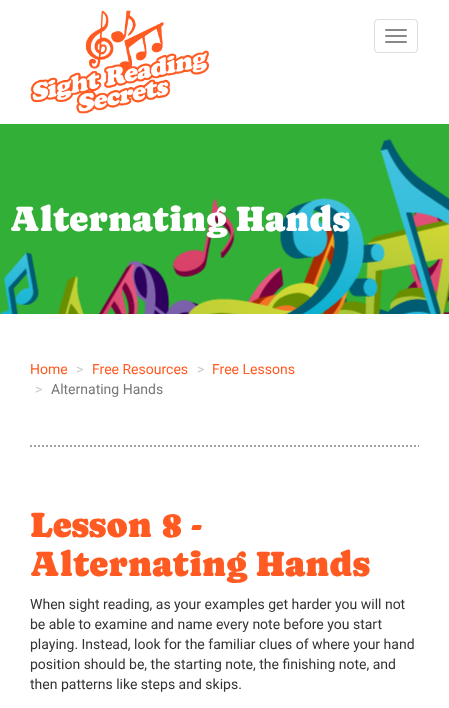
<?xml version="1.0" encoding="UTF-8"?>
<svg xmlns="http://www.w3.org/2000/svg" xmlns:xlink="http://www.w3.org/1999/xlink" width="449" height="708">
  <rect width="100%" height="100%" fill="#ffffff" />
  <image x="30" y="10" width="179" height="104" xlink:href="image1.png" />
  <rect x="374.5" y="19.5" width="43" height="33" rx="3.5" fill="none" stroke="#dddddd" />
  <rect x="385" y="29" width="22" height="2" rx="1" fill="#888888" />
  <rect x="385" y="35" width="22" height="2" rx="1" fill="#888888" />
  <rect x="385" y="41" width="22" height="2" rx="1" fill="#888888" />
  <rect y="124" width="449" height="190" fill="#32af36" />
  <image x="0" y="139" width="449" height="175" xlink:href="image2.png" />
  <path d="M 30 446 h 389" fill="none" stroke="#a3a3a3" stroke-width="2" stroke-dasharray="2 2" />
  <text x="10" y="231" style="font-family: Caprasimo; font-size: 36px; fill: #ffffff">Alternating Hands</text>
  <text x="30" y="374" style="font-family: Roboto; font-size: 14px; fill: #ff5a22">Home</text>
  <text x="76" y="374" style="font-family: Roboto; font-size: 14px; fill: #cccccc">&gt;</text>
  <text x="92" y="374" style="font-family: Roboto; font-size: 14px; fill: #ff5a22">Free Resources</text>
  <text x="197" y="374" style="font-family: Roboto; font-size: 14px; fill: #cccccc">&gt;</text>
  <text x="212" y="374" style="font-family: Roboto; font-size: 14px; fill: #ff5a22">Free Lessons</text>
  <text x="35" y="394" style="font-family: Roboto; font-size: 14px; fill: #cccccc">&gt;</text>
  <text x="51" y="394" style="font-family: Roboto; font-size: 14px; fill: #777777">Alternating Hands</text>
  <text x="30" y="537" style="font-family: Caprasimo; font-size: 36px; fill: #ff5a22">Lesson 8 -</text>
  <text x="30" y="576" style="font-family: Caprasimo; font-size: 36px; fill: #ff5a22">Alternating Hands</text>
  <text x="30" y="609" style="font-family: Roboto; font-size: 14px; fill: #333333">When sight reading, as your examples get harder you will not</text>
  <text x="30" y="629" style="font-family: Roboto; font-size: 14px; fill: #333333">be able to examine and name every note before you start</text>
  <text x="30" y="649" style="font-family: Roboto; font-size: 14px; fill: #333333">playing. Instead, look for the familiar clues of where your hand</text>
  <text x="30" y="669" style="font-family: Roboto; font-size: 14px; fill: #333333">position should be, the starting note, the finishing note, and</text>
  <text x="30" y="689" style="font-family: Roboto; font-size: 14px; fill: #333333">then patterns like steps and skips.</text>
</svg>
